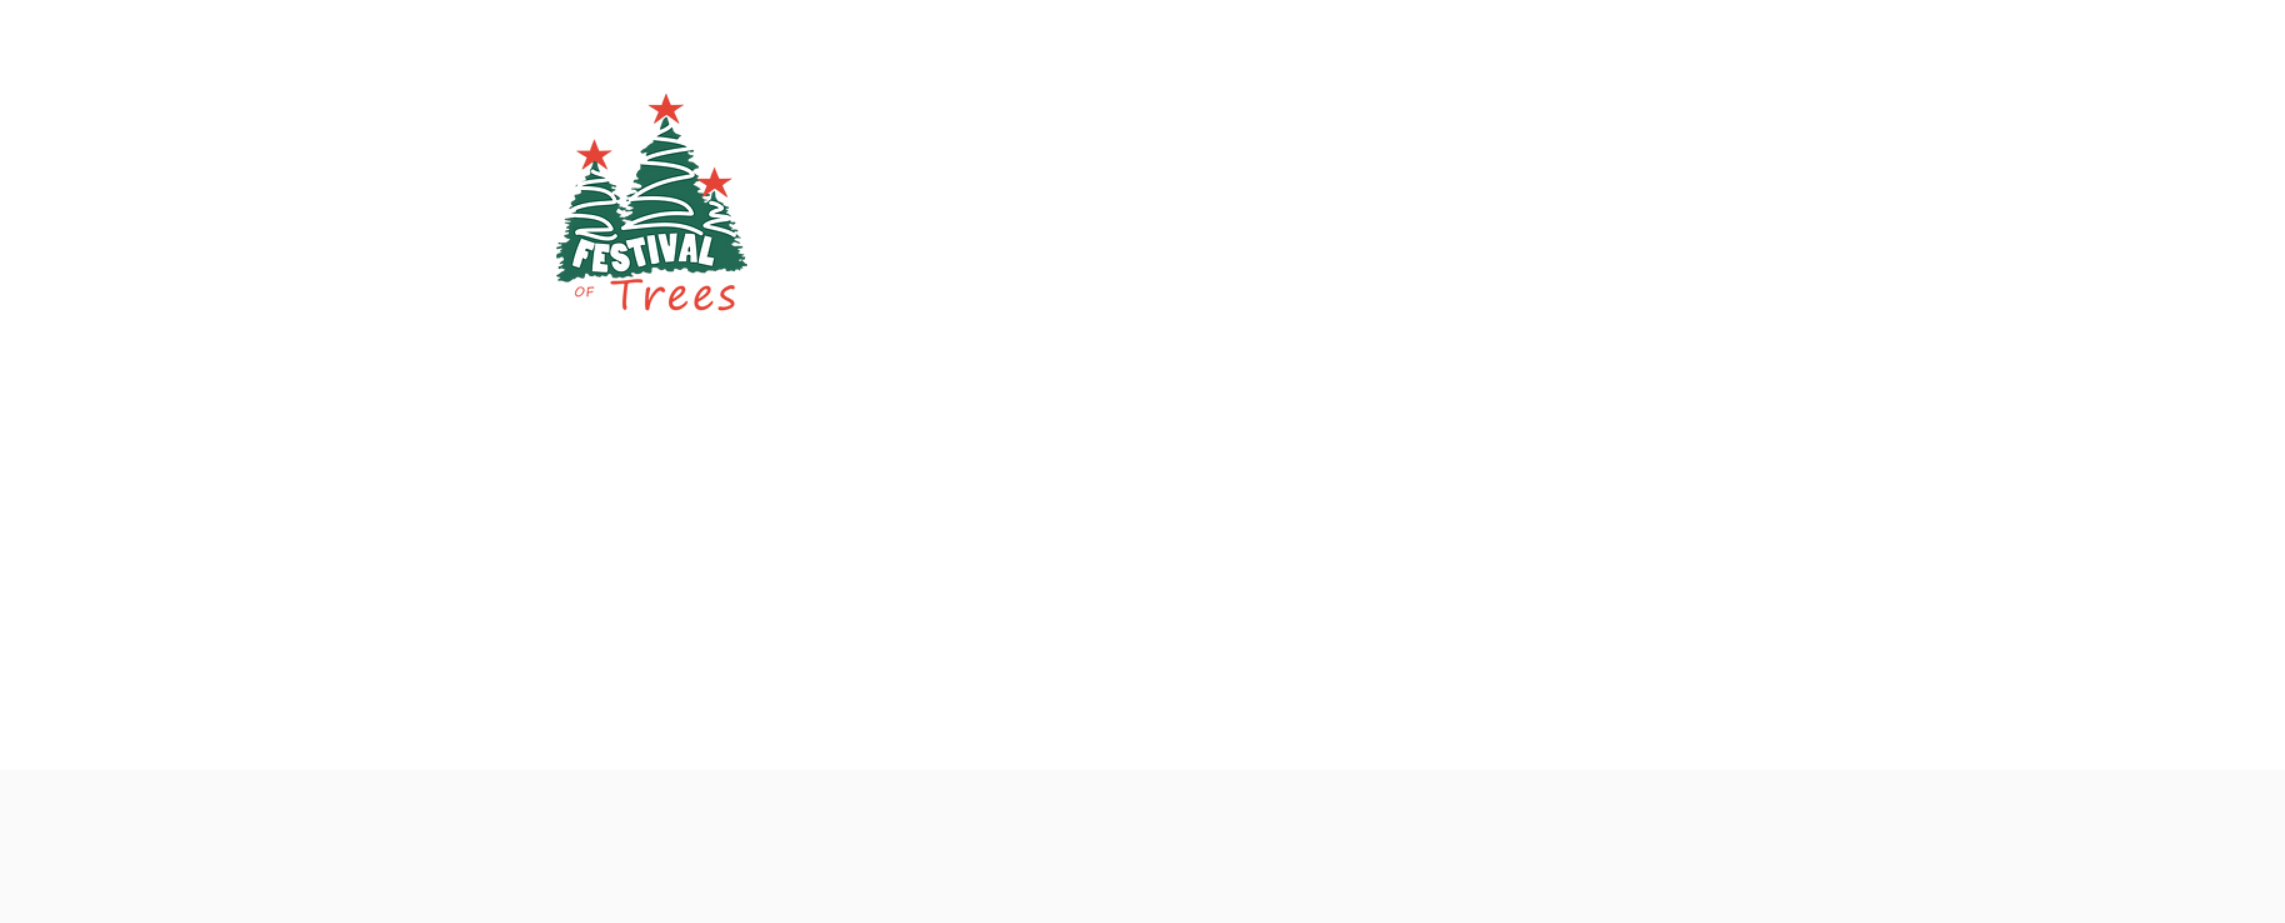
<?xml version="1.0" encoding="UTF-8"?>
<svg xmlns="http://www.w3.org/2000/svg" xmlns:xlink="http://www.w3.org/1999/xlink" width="2285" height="923">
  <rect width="100%" height="100%" fill="#ffffff" />
  <image x="556" y="92" width="192" height="220" xlink:href="image1.png" />
  <rect y="770" width="2285" height="153" fill="#fafafa" />
</svg>
